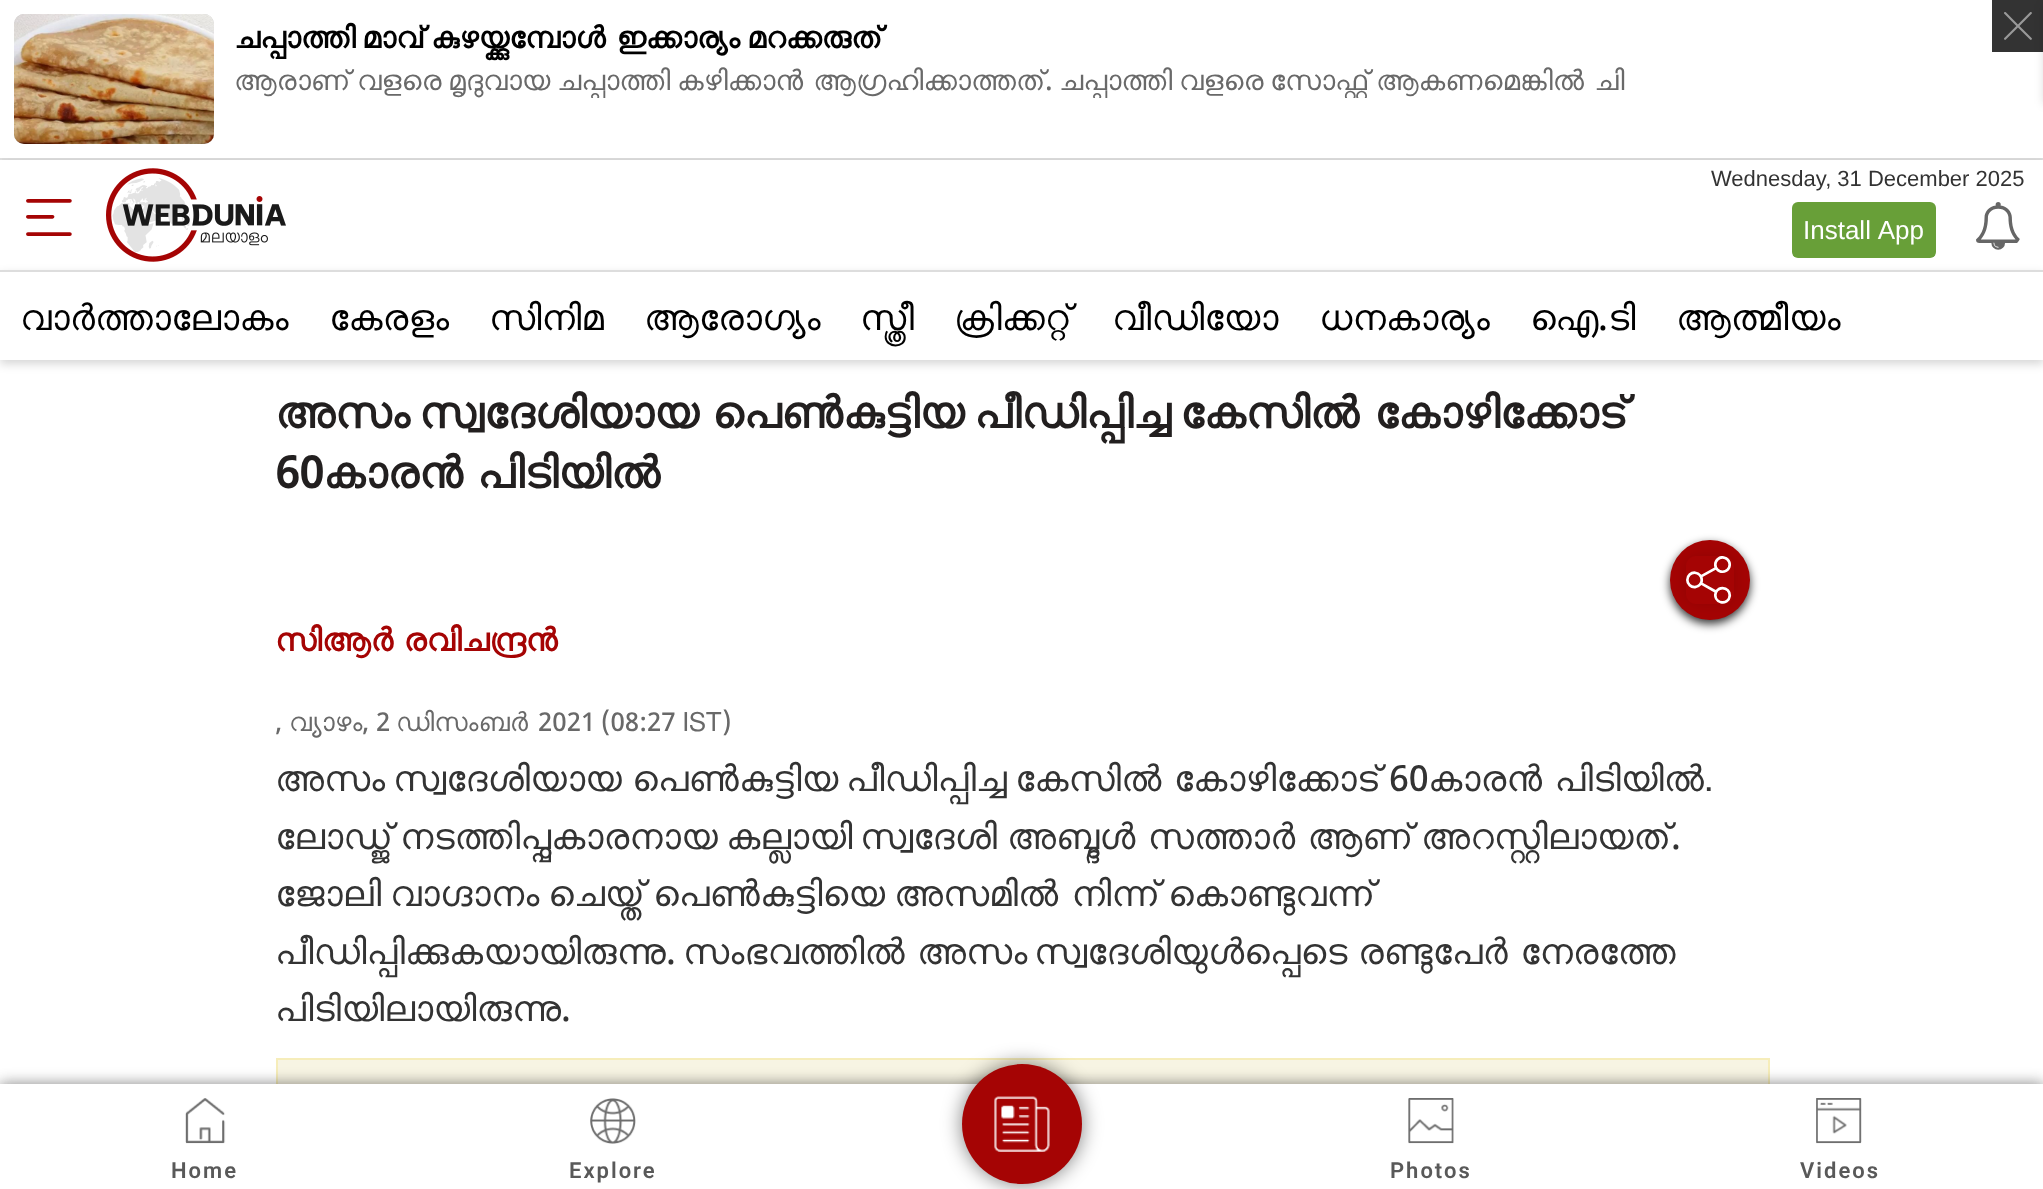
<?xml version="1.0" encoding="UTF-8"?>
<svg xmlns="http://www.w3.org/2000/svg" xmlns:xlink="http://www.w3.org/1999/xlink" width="2043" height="1189">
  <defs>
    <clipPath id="clip1"><rect x="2" y="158" width="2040" height="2" /></clipPath>
    <clipPath id="clip2"><path d="M 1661 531 h 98 v 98 h -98 z m 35 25 h 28 c 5.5 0 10 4.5 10 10 v 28 c 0 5.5 -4.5 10 -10 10 h -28 c -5.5 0 -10 -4.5 -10 -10 v -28 c 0 -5.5 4.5 -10 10 -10 z" clip-rule="evenodd" /></clipPath>
    <clipPath id="clip3"><rect x="234" y="60" width="1392" height="38" /></clipPath>
  </defs>
  <rect width="100%" height="100%" fill="#ffffff" />
  <rect x="1992" width="51" height="52" fill="#333333" />
  <image x="2004" y="12" width="28" height="28" xlink:href="image1.png" />
  <rect y="158" width="2043" height="2" fill="#dddddd" />
  <rect x="14" y="14" width="200" height="130" rx="10" fill="#cccccc" />
  <image x="14" y="14" width="200" height="130" xlink:href="image2.png" />
  <rect x="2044" y="4" width="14" height="100" fill="#000000" fill-opacity="0.16" filter="blur(5px)" />
  <g clip-path="url(#clip1)">
    <rect y="164" width="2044" height="110" fill="#000000" fill-opacity="0.16" filter="blur(5px)" />
  </g>
  <image x="26" y="199" width="46" height="37" xlink:href="image3.png" />
  <image x="106" y="168" width="180" height="94" xlink:href="image4.png" />
  <rect x="1792" y="202" width="144" height="56" rx="6" fill="#689f38" />
  <image x="1976" y="202" width="44" height="48" xlink:href="image5.png" />
  <rect y="274" width="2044" height="90" fill="#000000" fill-opacity="0.16" filter="blur(5px)" />
  <rect y="272" width="2043" height="88" fill="#ffffff" />
  <rect y="270" width="2043" height="2" fill="#dddddd" />
  <rect x="1670" y="544" width="80" height="80" rx="40" fill="#000000" fill-opacity="0.8" filter="blur(5px)" />
  <circle cx="1710" cy="580" r="40" fill="#a50404" />
  <g clip-path="url(#clip2)">
    <rect x="1686" y="556" width="48" height="48" rx="10" fill="#000000" fill-opacity="0.13" filter="blur(8px)" />
  </g>
  <image x="1686" y="556" width="46" height="48" xlink:href="image6.png" />
  <rect x="278" y="1060" width="1490" height="24" fill="#f7f4e3" />
  <rect x="277" y="1059" width="1492" height="84" fill="none" stroke="#f6edba" stroke-width="2" />
  <rect y="1084" width="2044" height="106" fill="#000000" fill-opacity="0.3" filter="blur(7px)" />
  <rect y="1084" width="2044" height="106" fill="#000000" fill-opacity="0.2" filter="blur(8px)" />
  <rect y="1084" width="2043" height="105" fill="#ffffff" />
  <image x="185" y="1098" width="41" height="46" xlink:href="image7.png" />
  <image x="590" y="1098" width="46" height="46" xlink:href="image8.png" />
  <rect x="962" y="1064" width="120" height="120" rx="60" fill="#000000" fill-opacity="0.5" filter="blur(10px)" />
  <circle cx="1022" cy="1124" r="60" fill="#a50404" />
  <image x="994" y="1096" width="56" height="56" xlink:href="image9.png" />
  <image x="1408" y="1098" width="46" height="46" xlink:href="image10.png" />
  <image x="1816" y="1098" width="46" height="46" xlink:href="image11.png" />
  <text x="234" y="48" style="font-family: FreeSans; font-size: 30px; font-weight: bold; fill: #000000">ചപ്പാത്തി</text>
  <text x="362" y="48" style="font-family: FreeSans; font-size: 30px; font-weight: bold; fill: #000000">മാവ്</text>
  <text x="431" y="48" word-spacing="-1" style="font-family: FreeSans; font-size: 30px; font-weight: bold; fill: #000000">കുഴയ്ക്കുമ്പോള്‍ ഇക്കാര്യം</text>
  <text x="747" y="48" style="font-family: FreeSans; font-size: 30px; font-weight: bold; fill: #000000">മറക്കരുത്</text>
  <text x="234" y="90" style="font-family: FreeSans; font-size: 28px; fill: #696969">ആരാണ്</text>
  <text x="357" y="90" style="font-family: FreeSans; font-size: 28px; fill: #696969">വളരെ</text>
  <text x="448" y="90" style="font-family: FreeSans; font-size: 28px; fill: #696969">മൃദുവായ</text>
  <g clip-path="url(#clip3)">
    <text x="557" y="90" style="font-family: FreeSans; font-size: 28px; fill: #696969">ചപ്പാത്തി</text>
  </g>
  <text x="677" y="90" word-spacing="-1" style="font-family: FreeSans; font-size: 28px; fill: #696969">കഴിക്കാന്‍ ആഗ്രഹിക്കാത്തത്</text>
  <text x="1045" y="90" style="font-family: Noto Sans Devanagari UI; font-size: 28px; font-weight: 500; fill: #696969">.</text>
  <g clip-path="url(#clip3)">
    <text x="1059" y="90" style="font-family: FreeSans; font-size: 28px; fill: #696969">ചപ്പാത്തി</text>
  </g>
  <text x="1179" y="90" style="font-family: FreeSans; font-size: 28px; fill: #696969">വളരെ</text>
  <g clip-path="url(#clip3)">
    <text x="1270" y="90" style="font-family: FreeSans; font-size: 28px; fill: #696969">സോഫ്റ്റ്</text>
  </g>
  <text x="1376" y="90" word-spacing="-1" style="font-family: FreeSans; font-size: 28px; fill: #696969">ആകണമെങ്കില്‍ ചി</text>
  <text x="1711" y="186" style="font-family: Liberation Sans; font-size: 22px; fill: #333333">Wednesday, 31 December 2025</text>
  <text x="1803" y="239" word-spacing="1" style="font-family: Liberation Sans; font-size: 26px; fill: #ffffff">Install App</text>
  <text x="20" y="330" style="font-family: FreeSans; font-size: 36px; fill: #000000">വാര്‍ത്താലോകം</text>
  <text x="329" y="330" style="font-family: FreeSans; font-size: 36px; fill: #000000">കേരളം</text>
  <text x="489" y="330" style="font-family: FreeSans; font-size: 36px; fill: #000000">സിനിമ</text>
  <text x="644" y="330" style="font-family: FreeSans; font-size: 36px; fill: #000000">ആരോഗ്യം</text>
  <text x="860" y="330" style="font-family: FreeSans; font-size: 36px; fill: #000000">സ്ത്രീ</text>
  <text x="954" y="330" style="font-family: FreeSans; font-size: 36px; fill: #000000">ക്രിക്കറ്റ്‌</text>
  <text x="1112" y="330" style="font-family: FreeSans; font-size: 36px; fill: #000000">വീഡിയോ</text>
  <text x="1319" y="330" style="font-family: FreeSans; font-size: 36px; fill: #000000">ധനകാര്യം</text>
  <text x="1530" y="330" style="font-family: FreeSans; font-size: 36px; fill: #000000">ഐ</text>
  <text x="1598" y="330" style="font-family: Noto Sans Devanagari UI; font-size: 36px; font-weight: 500; fill: #000000">.</text>
  <text x="1608" y="330" style="font-family: FreeSans; font-size: 36px; fill: #000000">ടി</text>
  <text x="1676" y="330" style="font-family: FreeSans; font-size: 36px; fill: #000000">ആത്മീയം</text>
  <text x="275" y="428" style="font-family: FreeSans; font-size: 44px; font-weight: bold; fill: #221f1f">അസം</text>
  <text x="419" y="428" style="font-family: FreeSans; font-size: 44px; font-weight: bold; fill: #221f1f">സ്വദേശിയായ</text>
  <text x="712" y="428" style="font-family: FreeSans; font-size: 44px; font-weight: bold; fill: #221f1f">പെണ്‍കുട്ടിയ</text>
  <text x="974" y="428" style="font-family: FreeSans; font-size: 44px; font-weight: bold; fill: #221f1f">പീഡിപ്പിച്ച</text>
  <text x="1180" y="428" word-spacing="-2" style="font-family: FreeSans; font-size: 44px; font-weight: bold; fill: #221f1f">കേസില്‍ കോഴിക്കോട്</text>
  <text x="275" y="488" style="font-family: Noto Sans Devanagari UI; font-size: 44px; font-weight: bold; fill: #221f1f">60</text>
  <text x="323" y="488" word-spacing="-3" style="font-family: FreeSans; font-size: 44px; font-weight: bold; fill: #221f1f">കാരന്‍ പിടിയില്‍</text>
  <text x="275" y="651" word-spacing="-2" style="font-family: FreeSans; font-size: 32px; font-weight: bold; fill: #a50404">സിആര്‍ രവിചന്ദ്രന്‍</text>
  <text x="275" y="731" style="font-family: Noto Sans Devanagari UI; font-size: 26px; font-weight: 500; fill: #696969">,</text>
  <text x="289" y="731" style="font-family: FreeSans; font-size: 26px; fill: #696969">വ്യാഴം</text>
  <text x="362" y="731" style="font-family: Noto Sans Devanagari UI; font-size: 26px; font-weight: 500; fill: #696969">, 2</text>
  <text x="396" y="731" style="font-family: FreeSans; font-size: 26px; fill: #696969">ഡിസംബര്‍</text>
  <text x="538" y="731" word-spacing="-1" style="font-family: Noto Sans Devanagari UI; font-size: 26px; font-weight: 500; fill: #696969">2021 (08:27</text>
  <text x="682" y="731" style="font-family: FreeSans; font-size: 26px; fill: #696969">IST</text>
  <text x="722" y="731" style="font-family: Noto Sans Devanagari UI; font-size: 26px; font-weight: 500; fill: #696969">)</text>
  <text x="275" y="791" style="font-family: FreeSans; font-size: 36px; fill: #333333">അസം</text>
  <text x="393" y="791" style="font-family: FreeSans; font-size: 36px; fill: #333333">സ്വദേശിയായ</text>
  <text x="632" y="791" style="font-family: FreeSans; font-size: 36px; fill: #333333">പെണ്‍കുട്ടിയ</text>
  <text x="846" y="791" style="font-family: FreeSans; font-size: 36px; fill: #333333">പീഡിപ്പിച്ച</text>
  <text x="1015" y="791" word-spacing="-2" style="font-family: FreeSans; font-size: 36px; fill: #333333">കേസില്‍ കോഴിക്കോട്</text>
  <text x="1389" y="791" style="font-family: Noto Sans Devanagari UI; font-size: 36px; font-weight: 500; fill: #333333">60</text>
  <text x="1428" y="791" word-spacing="-2" style="font-family: FreeSans; font-size: 36px; fill: #333333">കാരന്‍ പിടിയില്‍.</text>
  <text x="275" y="849" style="font-family: FreeSans; font-size: 36px; fill: #333333">ലോഡ്ജ്</text>
  <text x="400" y="849" style="font-family: FreeSans; font-size: 36px; fill: #333333">നടത്തിപ്പുകാരനായ</text>
  <text x="726" y="849" style="font-family: FreeSans; font-size: 36px; fill: #333333">കല്ലായി</text>
  <text x="860" y="849" style="font-family: FreeSans; font-size: 36px; fill: #333333">സ്വദേശി</text>
  <text x="1007" y="849" word-spacing="-2" style="font-family: FreeSans; font-size: 36px; fill: #333333">അബ്ദുള്‍ സത്താര്‍ ആണ്</text>
  <text x="1421" y="849" style="font-family: FreeSans; font-size: 36px; fill: #333333">അറസ്റ്റിലായത്</text>
  <text x="1671" y="849" style="font-family: Noto Sans Devanagari UI; font-size: 36px; font-weight: 500; fill: #333333">.</text>
  <text x="275" y="906" style="font-family: FreeSans; font-size: 36px; fill: #333333">ജോലി</text>
  <text x="390" y="906" style="font-family: FreeSans; font-size: 36px; fill: #333333">വാഗ്ദാനം</text>
  <text x="548" y="906" style="font-family: FreeSans; font-size: 36px; fill: #333333">ചെയ്ത്</text>
  <text x="653" y="906" style="font-family: FreeSans; font-size: 36px; fill: #333333">പെണ്‍കുട്ടിയെ</text>
  <text x="894" y="906" word-spacing="-1" style="font-family: FreeSans; font-size: 36px; fill: #333333">അസമില്‍ നിന്ന്</text>
  <text x="1168" y="906" style="font-family: FreeSans; font-size: 36px; fill: #333333">കൊണ്ടുവന്ന്</text>
  <text x="275" y="964" style="font-family: FreeSans; font-size: 36px; fill: #333333">പീഡിപ്പിക്കുകയായിരുന്നു</text>
  <text x="666" y="964" style="font-family: Noto Sans Devanagari UI; font-size: 36px; font-weight: 500; fill: #333333">.</text>
  <text x="683" y="964" word-spacing="-2" style="font-family: FreeSans; font-size: 36px; fill: #333333">സംഭവത്തില്‍ അസം</text>
  <text x="1034" y="964" style="font-family: FreeSans; font-size: 36px; fill: #333333">സ്വദേശിയുള്‍പ്പെടെ</text>
  <text x="1358" y="964" word-spacing="-2" style="font-family: FreeSans; font-size: 36px; fill: #333333">രണ്ടുപേര്‍ നേരത്തേ</text>
  <text x="275" y="1021" style="font-family: FreeSans; font-size: 36px; fill: #333333">പിടിയിലായിരുന്നു</text>
  <text x="561" y="1021" style="font-family: Noto Sans Devanagari UI; font-size: 36px; font-weight: 500; fill: #333333">.</text>
  <text x="171" y="1178" style="font-family: Roboto; font-size: 22px; font-weight: 600; letter-spacing: 2px; fill: #595959">Home</text>
  <text x="569" y="1178" style="font-family: Roboto; font-size: 22px; font-weight: 600; letter-spacing: 2px; fill: #595959">Explore</text>
  <text x="1390" y="1178" style="font-family: Roboto; font-size: 22px; font-weight: 600; letter-spacing: 2px; fill: #595959">Photos</text>
  <text x="1800" y="1178" style="font-family: Roboto; font-size: 22px; font-weight: 600; letter-spacing: 2px; fill: #595959">Videos</text>
</svg>
